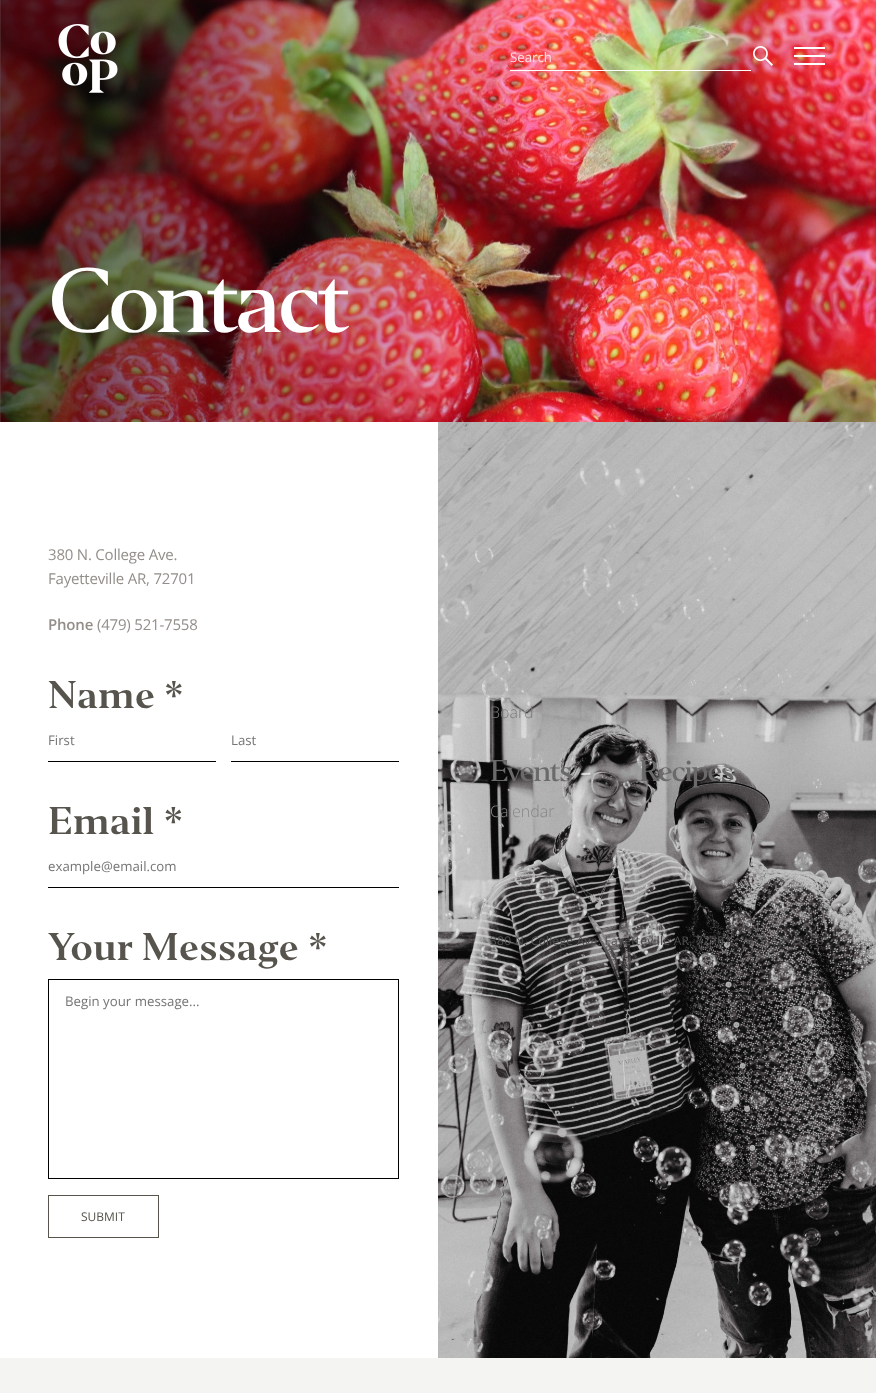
<?xml version="1.0" encoding="UTF-8"?>
<svg xmlns="http://www.w3.org/2000/svg" xmlns:xlink="http://www.w3.org/1999/xlink" width="876" height="1393">
  <rect width="100%" height="100%" fill="#f4f4f3" />
  <image x="0" y="0" width="876" height="422" xlink:href="image1.png" />
  <image x="58" y="24" width="60" height="69" xlink:href="image2.png" />
  <rect x="510" y="70" width="241" height="1" fill="#ffffff" />
  <image x="753" y="46" width="20" height="20" xlink:href="image3.png" />
  <rect x="794" y="47" width="31" height="2" fill="#ffffff" />
  <rect x="794" y="55" width="31" height="2" fill="#ffffff" />
  <rect x="794" y="63" width="31" height="2" fill="#ffffff" />
  <rect y="422" width="438" height="936" fill="#ffffff" />
  <rect x="48" y="761" width="168" height="1" fill="#000000" />
  <rect x="231" y="761" width="168" height="1" fill="#000000" />
  <rect x="48" y="887" width="351" height="1" fill="#000000" />
  <rect x="48.5" y="979.5" width="350" height="199" fill="none" stroke="#000000" />
  <rect x="48.5" y="1195.5" width="110" height="42" fill="none" stroke="#56544c" />
  <image x="438" y="422" width="438" height="936" xlink:href="image4.png" />
  <text x="48" y="332" style="font-family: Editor; font-size: 85px; font-weight: 500; letter-spacing: -5.25px; fill: #ffffff">Contact</text>
  <text x="510" y="62" style="font-family: Open Sans; font-size: 13.25px; fill: #fedfe2">Search</text>
  <text x="490" y="718" style="font-family: Open Sans; font-size: 16px; font-weight: 300; fill: #7e7d7e">Board</text>
  <text x="490" y="781" style="font-family: Editor; font-size: 28px; font-weight: 500; letter-spacing: -1.75px; fill: #6a6a6a">Events</text>
  <text x="490" y="817" style="font-family: Open Sans; font-size: 16px; font-weight: 300; fill: #898888">Calendar</text>
  <text x="639" y="781" style="font-family: Editor; font-size: 28px; font-weight: 500; letter-spacing: -1.75px; fill: #6a6a6a">Recipes</text>
  <text x="490" y="945" style="font-family: Open Sans; font-size: 12px; letter-spacing: 0.25px; fill: #504f4f">380 N. College Ave. Fayetteville AR, 72701</text>
  <text x="746" y="945" style="font-family: Open Sans; font-size: 12px; letter-spacing: 0.25px; fill: #434142">479.521.7558</text>
  <text x="48" y="560" style="font-family: Open Sans; font-size: 15px; letter-spacing: -0.2px; fill: #938e89">380 N. College Ave.</text>
  <text x="48" y="584" style="font-family: Open Sans; font-size: 15px; letter-spacing: -0.2px; fill: #938e89">Fayetteville AR, 72701</text>
  <text x="48" y="630" style="font-family: Open Sans; font-size: 15px; font-weight: 600; letter-spacing: -0.2px; fill: #938e89">Phone</text>
  <text x="97" y="630" style="font-family: Open Sans; font-size: 15px; letter-spacing: -0.2px; fill: #938e89">(479) 521-7558</text>
  <text x="48" y="708" style="font-family: Editor; font-size: 36px; font-weight: bold; fill: #56544c">Name *</text>
  <text x="48" y="745" style="font-family: Open Sans; font-size: 13.25px; fill: #757575">First</text>
  <text x="231" y="745" style="font-family: Open Sans; font-size: 13.25px; fill: #757575">Last</text>
  <text x="48" y="834" style="font-family: Editor; font-size: 36px; font-weight: bold; fill: #56544c">Email *</text>
  <text x="48" y="871" style="font-family: Open Sans; font-size: 13.25px; fill: #757575">example@email.com</text>
  <text x="48" y="960" style="font-family: Editor; font-size: 36px; font-weight: bold; fill: #56544c">Your Message *</text>
  <text x="65" y="1006" style="font-family: Open Sans; font-size: 13.25px; fill: #757575">Begin your message...</text>
  <text x="81" y="1221" style="font-family: Open Sans; font-size: 12px; fill: #56544c">SUBMIT</text>
</svg>
